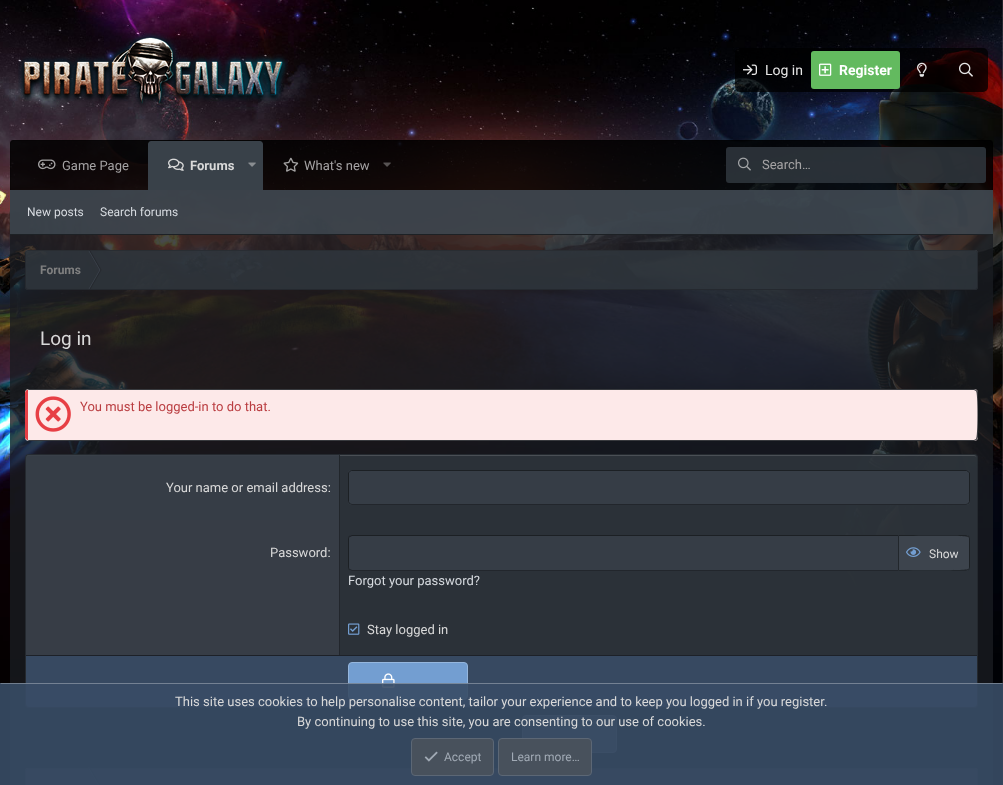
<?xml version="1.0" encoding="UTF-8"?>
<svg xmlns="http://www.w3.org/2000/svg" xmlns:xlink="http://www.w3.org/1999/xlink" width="1003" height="785">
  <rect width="100%" height="100%" fill="#ffffff" />
  <image x="0" y="0" width="1003" height="785" xlink:href="image1.png" />
  <image x="18" y="33" width="270" height="75" xlink:href="image2.png" />
  <rect x="735" y="48" width="253" height="44" rx="5" fill="#000000" fill-opacity="0.75" />
  <image x="743" y="64" width="14" height="11" xlink:href="image3.png" />
  <rect x="811" y="51" width="89" height="38" rx="3" fill="#63ba5f" />
  <image x="819" y="63" width="13" height="13" xlink:href="image4.png" />
  <image x="917" y="62" width="10" height="15" xlink:href="image5.png" />
  <image x="959" y="62" width="14" height="15" xlink:href="image6.png" />
  <path d="M 13 140 h 977 c 1.5 0 3 1.5 3 3 v 47 h -983 v -47 c 0 -1.5 1.5 -3 3 -3 z" fill="#000000" fill-opacity="0.85" />
  <path d="M 13 140 h 977 c 2 0 3 1 3 3 v 47 h -983 v -47 c 0 -2 1 -3 3 -3 z m 0 1 h 977 c 1 0 2 1 2 2 v 47 h -981 v -47 c 0 -1 1 -2 2 -2 z" fill="#000000" fill-opacity="0.2" fill-rule="evenodd" />
  <image x="38" y="159" width="18" height="11" xlink:href="image7.png" />
  <path d="M 151 141 h 109 c 1.5 0 3 1.5 3 3 v 46 h -115 v -46 c 0 -1.5 1.5 -3 3 -3 z" fill="#3a424a" fill-opacity="0.98" />
  <image x="168" y="158" width="16" height="13" xlink:href="image8.png" />
  <image x="248" y="162" width="8" height="5" xlink:href="image9.png" />
  <image x="283" y="157" width="16" height="15" xlink:href="image10.png" />
  <image x="383" y="162" width="8" height="5" xlink:href="image11.png" />
  <rect x="726" y="147" width="260" height="36" rx="3" fill="#2f353c" fill-opacity="0.88" />
  <image x="738" y="157" width="13" height="14" xlink:href="image12.png" />
  <rect x="10" y="190" width="983" height="45" fill="#3a424a" fill-opacity="0.98" />
  <rect x="10" y="234" width="983" height="1" fill="#191c20" fill-opacity="0.88" />
  <rect x="10" y="235" width="983" height="550" fill="#191c20" fill-opacity="0.8" />
  <rect x="25" y="250" width="953" height="40" rx="3" fill="#2f353c" fill-opacity="0.88" />
  <path d="M 28 251 h 947 c 2 0 3 1 3 3 c 0 -2 -1 -4 -3 -4 h -947 c -2 0 -3 2 -3 4 c 0 -2 1 -3 3 -3 z" fill="#ffffff" fill-opacity="0.15" />
  <path d="M 88 250 h 1 l 11.5 20 h -1 z" fill="#515b67" fill-opacity="0.4" />
  <path d="M 89 250 h 1 l 11.5 20 h -1 z" fill="#24282e" fill-opacity="0.88" />
  <path d="M 99.5 270 h 1 l -11.5 20 h -1 z" fill="#3b424b" />
  <path d="M 100.5 270 h 1 l -11.5 20 h -1 z" fill="#24282e" fill-opacity="0.88" />
  <rect x="25.5" y="250.5" width="952" height="39" rx="2.5" fill="none" stroke="#24282e" stroke-opacity="0.88" />
  <rect x="25" y="389" width="953" height="52" rx="4" fill="#fde9e9" />
  <path d="M 29 389 l -2 1 h 1 h 946 l 2 1 l 1 -1 l -3 -1 z" fill="#1d2125" fill-opacity="0.88" />
  <path d="M 978 437 v -44 c 0 -1 0 -2 -1 -3 l -1 1 c 2 1 2 47 0 48 l 1 1 z" fill="#1d2125" fill-opacity="0.88" />
  <path d="M 29 441 h 945 l 3 -1 l -1 -1 l -2 1 h -946 h -1 z" fill="#1d2125" fill-opacity="0.88" />
  <path d="M 25 393 v 45 l 2 2 h 1 v -1 v -49 h -1 c -1 0 -2 2 -2 3 z" fill="#e73f45" />
  <image x="35" y="396" width="36" height="36" xlink:href="image13.png" />
  <rect x="25" y="454" width="953" height="254" rx="4" fill="#2f353c" fill-opacity="0.88" />
  <path d="M 29 456 h 945 c 2 0 3 1 3 3 c 0 -2 -1 -4 -3 -4 h -945 c -2 0 -3 2 -3 4 c 0 -2 1 -3 3 -3 z" fill="#ffffff" fill-opacity="0.15" />
  <rect x="25.5" y="454.5" width="952" height="253" rx="3.5" fill="none" stroke="#000000" stroke-opacity="0.15" />
  <path d="M 29 455 h 311 v 65 h -314 v -62 c 0 -1.5 1.5 -3 3 -3 z" fill="#383f48" fill-opacity="0.88" />
  <rect x="339" y="455" width="1" height="65" fill="#1f2328" fill-opacity="0.88" />
  <rect x="348" y="470" width="622" height="35" rx="4" fill="#383f48" fill-opacity="0.88" />
  <path d="M 968.5 503.5 l -2.5 1 h -614 l -2.5 -1" fill="none" stroke="#22262c" />
  <path d="M 349.5 503.5 l -1 -2 v -28.5 c 0.5 -1 1.5 -2 3 -2.5 h 615 c 1.5 0.5 2.5 1.5 3 2.5 v 28.5 l -1 2" fill="none" stroke="#191c20" stroke-opacity="0.88" />
  <rect x="26" y="520" width="313" height="135" fill="#373d46" />
  <rect x="339" y="520" width="1" height="135" fill="#22262c" />
  <path d="M 352 535 h 546 v 36 h -546 c -2 0 -4 -2 -4 -4 v -28 c 0 -2 2 -4 4 -4 z" fill="#383f48" fill-opacity="0.88" />
  <path d="M 352 535 l -3 1 l 1 1 l 2 -1 h 546 v -1 z" fill="#191c20" fill-opacity="0.88" />
  <path d="M 898 571 v -1 h -546 l -2 -1 l -1 1 l 3 1 z" fill="#22262c" />
  <path d="M 348 539 v 28 c 0 1 0.5 2 1 3 l 1 -1 c -1 0 -1 -1 -1 -2 v -28 c 0 -1 0 -2 1 -2 l -1 -1 c -0.5 1 -1 2 -1 3 z" fill="#191c20" fill-opacity="0.88" />
  <path d="M 898 535 h 68 c 2 0 4 2 4 4 v 28 c 0 2 -2 4 -4 4 h -68 z" fill="#3d444d" />
  <path d="M 898 535 l 1 1 c 8 0 68 -1 69 1 l 1 -1 l -3 -1 z" fill="#191c20" fill-opacity="0.88" />
  <path d="M 970 567 v -28 c 0 -1 -0.5 -2 -1 -3 l -1 1 c 1 0 1 1 1 2 v 28 c 0 1 0 2 -1 2 l 1 1 c 0.5 -1 1 -2 1 -3 z" fill="#191c20" fill-opacity="0.88" />
  <path d="M 966 571 l 3 -1 l -1 -1 c -1 2 -61 1 -69 1 l -1 1 z" fill="#1f2328" fill-opacity="0.88" />
  <path d="M 898 535 v 36 l 1 -1 v -34 z" fill="#1f2328" fill-opacity="0.88" />
  <image x="906" y="547" width="15" height="10" xlink:href="image14.png" />
  <image x="348" y="623" width="12" height="12" xlink:href="image15.png" />
  <path d="M 26 655 h 951 v 49 c 0 1.5 -1.5 3 -3 3 h -945 c -1.5 0 -3 -1.5 -3 -3 z" fill="#384c65" fill-opacity="0.91" />
  <rect x="26" y="655" width="951" height="1" fill="#1d2128" />
  <rect x="348.5" y="662.5" width="119" height="37" rx="3.5" fill="#739ed1" stroke="#95b6dd" />
  <image x="382" y="673" width="13" height="15" xlink:href="image16.png" />
  <rect x="522.5" y="715.5" width="94" height="37" rx="3.5" fill="#48515c" stroke="#5c6775" />
  <rect x="25" y="768" width="953" height="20" rx="3" fill="#2f353c" fill-opacity="0.88" />
  <path d="M 28 769 h 947 c 2 0 3 1 3 3 c 0 -2 -1 -4 -3 -4 h -947 c -2 0 -3 2 -3 4 c 0 -2 1 -3 3 -3 z" fill="#ffffff" fill-opacity="0.15" />
  <path d="M 88 767.5 h 1 l 11.5 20 h -1 z" fill="#515b67" fill-opacity="0.4" />
  <path d="M 89 767.5 h 1 l 11.5 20 h -1 z" fill="#24282e" fill-opacity="0.88" />
  <rect x="25.5" y="768.5" width="952" height="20" rx="2.5" fill="none" stroke="#24282e" stroke-opacity="0.88" />
  <rect y="683" width="1003" height="102" fill="#384c65" fill-opacity="0.91" />
  <path d="M 0 683 h 1003 l -1 1 h -1001 z" fill="#ffffff" fill-opacity="0.3" />
  <rect x="411.5" y="738.5" width="82" height="37" rx="3.5" fill="#48515c" stroke="#5c6775" />
  <image x="424" y="751" width="14" height="11" xlink:href="image17.png" />
  <rect x="498.5" y="738.5" width="93" height="37" rx="3.5" fill="#48515c" stroke="#5c6775" />
  <text x="765" y="75" style="font-family: Roboto; font-size: 14px; fill: #e6e6e6">Log in</text>
  <text x="839" y="75" style="font-family: Roboto; font-size: 14px; font-weight: bold; fill: #ffffff">Register</text>
  <text x="62" y="170" style="font-family: Roboto; font-size: 13px; fill: #a5a3a4">Game Page</text>
  <text x="190" y="170" style="font-family: Roboto; font-size: 13px; font-weight: bold; fill: #d9d9d9">Forums</text>
  <text x="304" y="170" style="font-family: Roboto; font-size: 13px; fill: #a5a3a4">What's new</text>
  <text x="762" y="169" style="font-family: Roboto; font-size: 13px; fill: #a5a3a4">Search…</text>
  <text x="27" y="216" style="font-family: Roboto; font-size: 12px; fill: #d7dbe0">New posts</text>
  <text x="100" y="216" style="font-family: Roboto; font-size: 12px; fill: #d7dbe0">Search forums</text>
  <text x="40" y="274" style="font-family: Roboto; font-size: 12px; font-weight: bold; fill: #808080">Forums</text>
  <text x="40" y="345" style="font-family: Roboto; font-size: 19px; fill: #d9d9d9">Log in</text>
  <text x="80" y="411" style="font-family: Roboto; font-size: 13px; fill: #ba3d41">You must be logged-in to do that.</text>
  <text x="166" y="492" style="font-family: Roboto; font-size: 13px; fill: #d9d9d9">Your name or email address:</text>
  <text x="270" y="557" style="font-family: Roboto; font-size: 13px; fill: #d9d9d9">Password:</text>
  <text x="929" y="558" style="font-family: Roboto; font-size: 12px; fill: #d9d9d9">Show</text>
  <text x="348" y="585" style="font-family: Roboto; font-size: 13px; fill: #d7dbe0">Forgot your password?</text>
  <text x="367" y="634" style="font-family: Roboto; font-size: 13px; fill: #d9d9d9">Stay logged in</text>
  <text x="175" y="706" style="font-family: Roboto; font-size: 13px; fill: #d9d9d9">This site uses cookies to help personalise content, tailor your experience and to keep you logged in if you register.</text>
  <text x="297" y="726" style="font-family: Roboto; font-size: 13px; fill: #d9d9d9">By continuing to use this site, you are consenting to our use of cookies.</text>
  <text x="444" y="761" style="font-family: Roboto; font-size: 12px; fill: #a1aab5">Accept</text>
  <text x="511" y="761" style="font-family: Roboto; font-size: 12px; fill: #a1aab5">Learn more…</text>
</svg>
